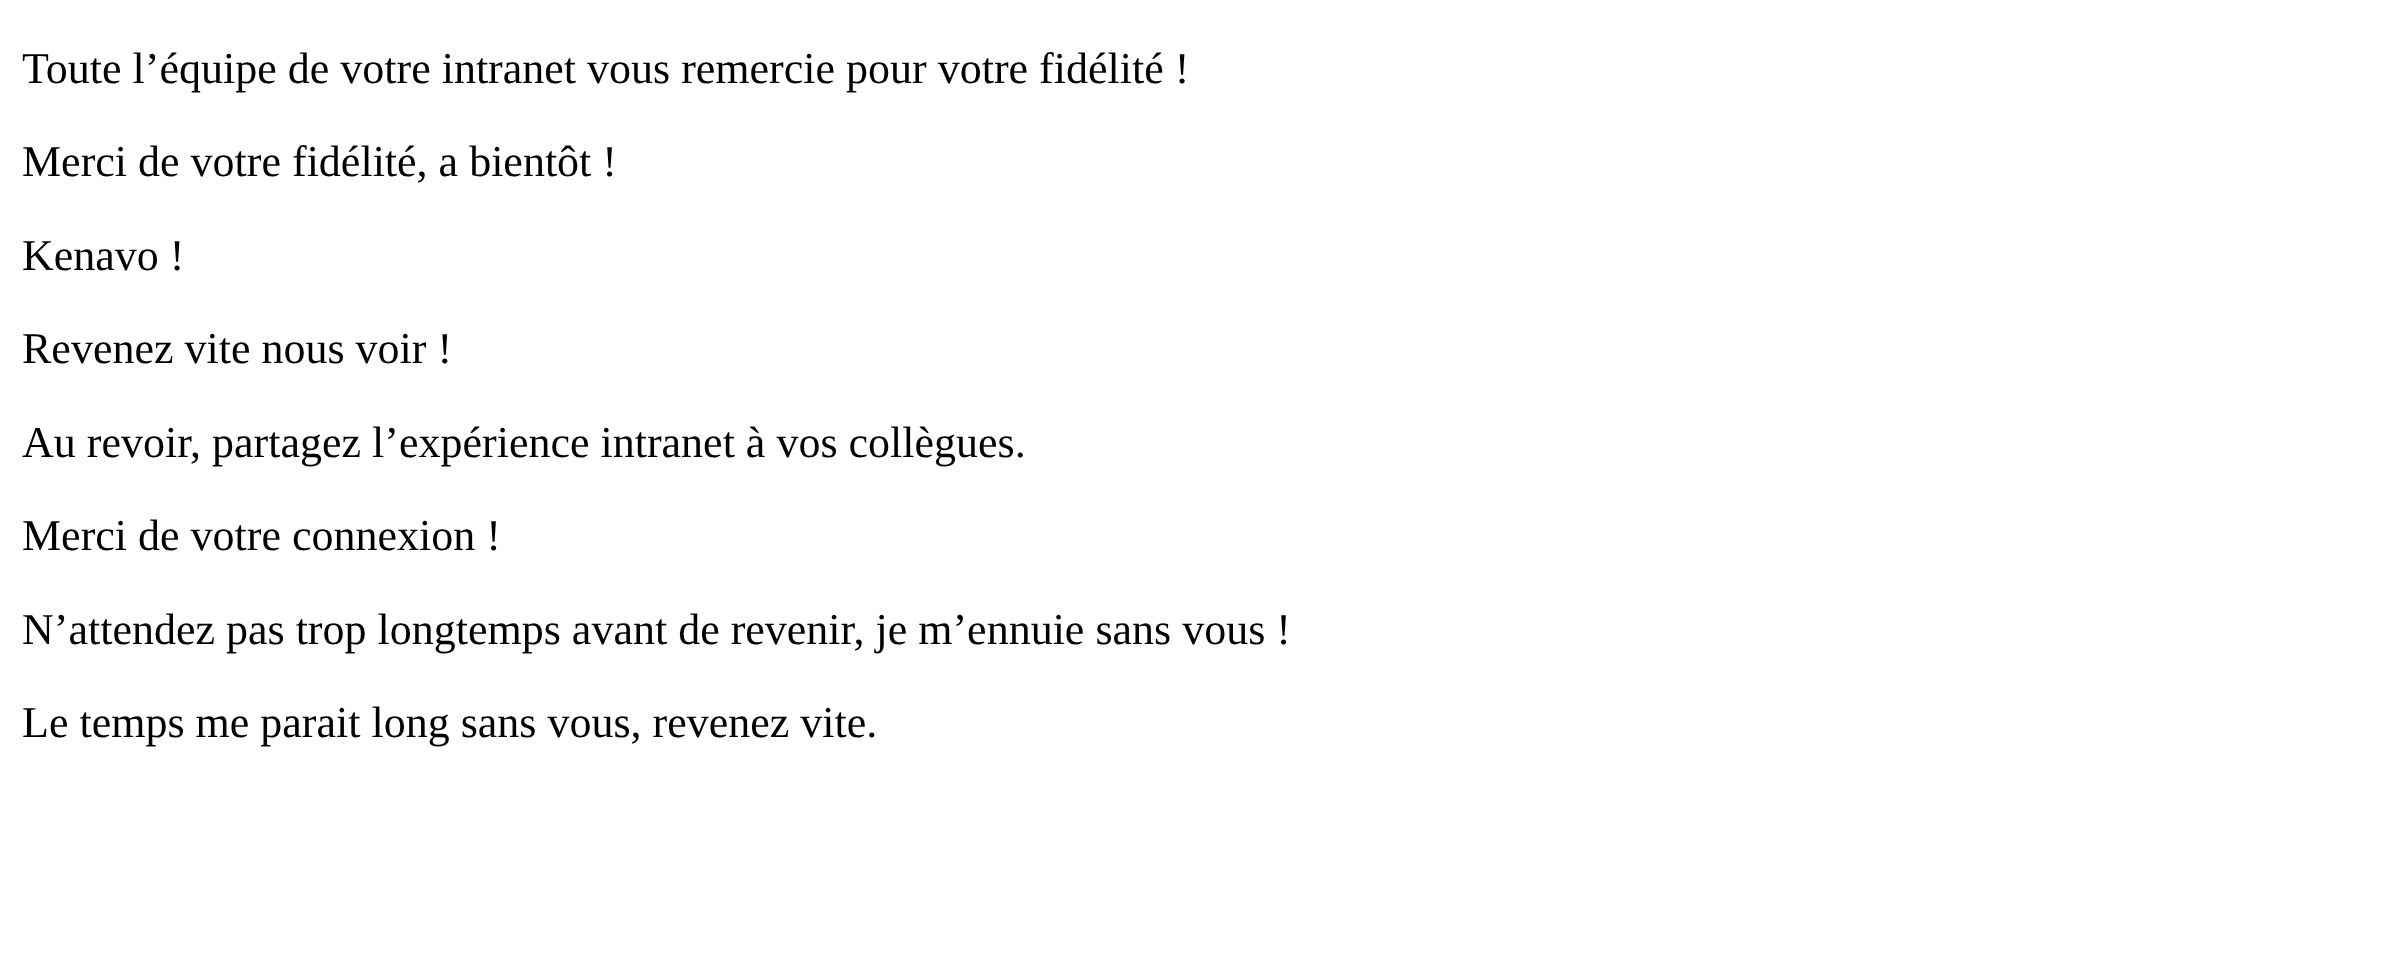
<?xml version="1.0" encoding="UTF-8"?>
<svg xmlns="http://www.w3.org/2000/svg" xmlns:xlink="http://www.w3.org/1999/xlink" width="2385" height="958">
  <rect width="100%" height="100%" fill="#ffffff" />
  <text x="22" y="83" style="font-family: Liberation Serif; font-size: 44px; fill: #000000">Toute l’équipe de votre intranet vous remercie pour votre fidélité !</text>
  <text x="22" y="176" style="font-family: Liberation Serif; font-size: 44px; fill: #000000">Merci de votre fidélité, a bientôt !</text>
  <text x="22" y="270" style="font-family: Liberation Serif; font-size: 44px; fill: #000000">Kenavo !</text>
  <text x="22" y="363" style="font-family: Liberation Serif; font-size: 44px; fill: #000000">Revenez vite nous voir !</text>
  <text x="22" y="457" style="font-family: Liberation Serif; font-size: 44px; fill: #000000">Au revoir, partagez l’expérience intranet à vos collègues.</text>
  <text x="22" y="550" style="font-family: Liberation Serif; font-size: 44px; fill: #000000">Merci de votre connexion !</text>
  <text x="22" y="644" style="font-family: Liberation Serif; font-size: 44px; fill: #000000">N’attendez pas trop longtemps avant de revenir, je m’ennuie sans vous !</text>
  <text x="22" y="737" style="font-family: Liberation Serif; font-size: 44px; fill: #000000">Le temps me parait long sans vous, revenez vite.</text>
</svg>
